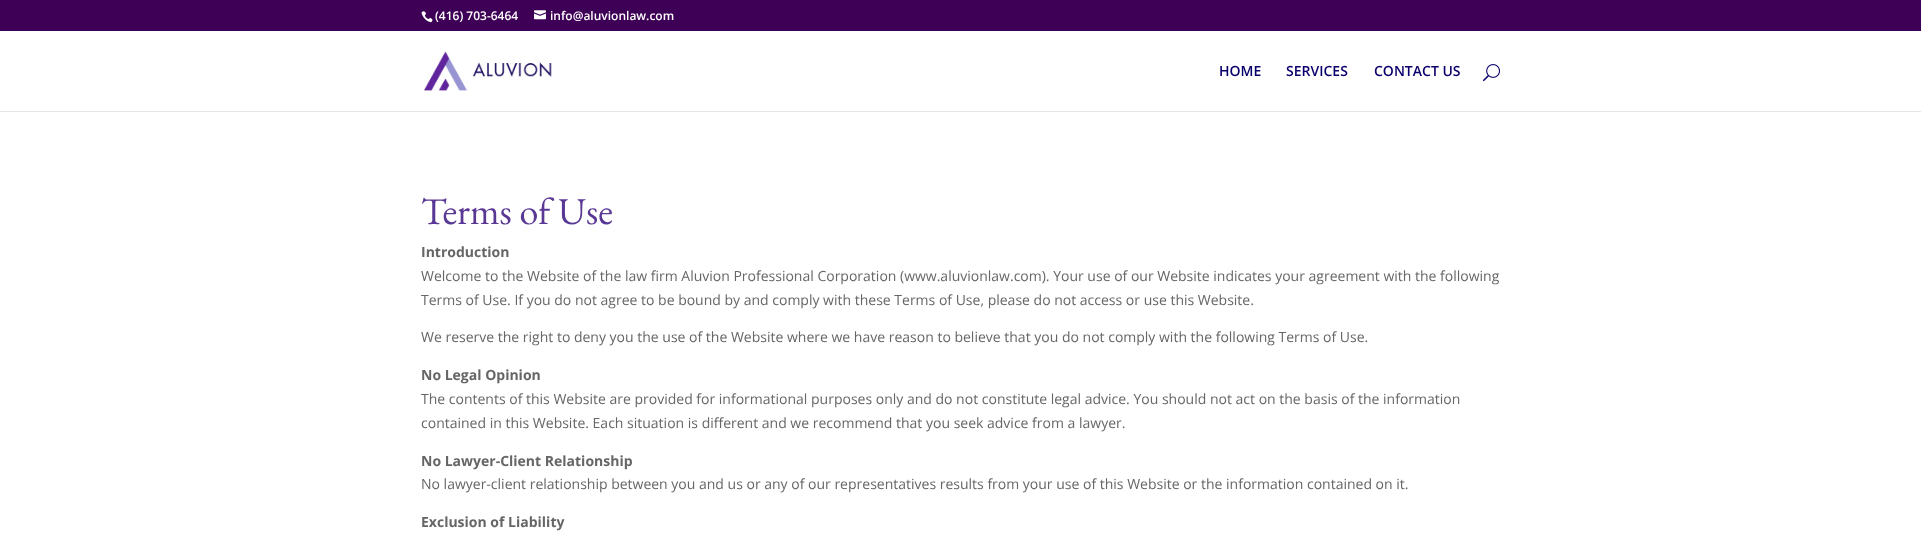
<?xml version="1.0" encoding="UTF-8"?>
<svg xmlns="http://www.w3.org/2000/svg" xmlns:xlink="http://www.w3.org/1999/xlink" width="1921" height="543">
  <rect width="100%" height="100%" fill="#ffffff" />
  <rect width="1921" height="31" fill="#3e0056" />
  <image x="421" y="11" width="12" height="12" xlink:href="image1.png" />
  <image x="534" y="10" width="12" height="10" xlink:href="image2.png" />
  <rect y="111" width="1921" height="1" fill="#e6e6e6" />
  <image x="424" y="51" width="128" height="40" xlink:href="image3.png" />
  <image x="1483" y="64" width="17" height="18" xlink:href="image4.png" />
  <text x="435" y="20" style="font-family: Open Sans; font-size: 12px; font-weight: 600; fill: #ffffff">(416) 703-6464</text>
  <text x="550" y="20" style="font-family: Open Sans; font-size: 12px; font-weight: 600; fill: #ffffff">info@aluvionlaw.com</text>
  <text x="1219" y="76" style="font-family: Open Sans; font-size: 14px; font-weight: 600; fill: #0a006b">HOME</text>
  <text x="1286" y="76" style="font-family: Open Sans; font-size: 14px; font-weight: 600; fill: #0a006b">SERVICES</text>
  <text x="1374" y="76" style="font-family: Open Sans; font-size: 14px; font-weight: 600; fill: #0a006b">CONTACT US</text>
  <text x="421" y="224" style="font-family: EB Garamond; font-size: 38px; fill: #593895">Terms of Use</text>
  <text x="421" y="257" style="font-family: Open Sans; font-size: 14px; font-weight: bold; fill: #666666">Introduction</text>
  <text x="421" y="281" style="font-family: Open Sans; font-size: 14px; fill: #666666">Welcome to the Website of the law firm Aluvion Professional Corporation (www.aluvionlaw.com). Your use of our Website indicates your agreement with the following</text>
  <text x="421" y="305" style="font-family: Open Sans; font-size: 14px; fill: #666666">Terms of Use. If you do not agree to be bound by and comply with these Terms of Use, please do not access or use this Website.</text>
  <text x="421" y="342" style="font-family: Open Sans; font-size: 14px; fill: #666666">We reserve the right to deny you the use of the Website where we have reason to believe that you do not comply with the following Terms of Use.</text>
  <text x="421" y="380" style="font-family: Open Sans; font-size: 14px; font-weight: bold; fill: #666666">No Legal Opinion</text>
  <text x="421" y="404" style="font-family: Open Sans; font-size: 14px; fill: #666666">The contents of this Website are provided for informational purposes only and do not constitute legal advice. You should not act on the basis of the information</text>
  <text x="421" y="428" style="font-family: Open Sans; font-size: 14px; fill: #666666">contained in this Website. Each situation is different and we recommend that you seek advice from a lawyer.</text>
  <text x="421" y="466" style="font-family: Open Sans; font-size: 14px; font-weight: bold; fill: #666666">No Lawyer-Client Relationship</text>
  <text x="421" y="489" style="font-family: Open Sans; font-size: 14px; fill: #666666">No lawyer-client relationship between you and us or any of our representatives results from your use of this Website or the information contained on it.</text>
  <text x="421" y="527" style="font-family: Open Sans; font-size: 14px; font-weight: bold; fill: #666666">Exclusion of Liability</text>
</svg>
